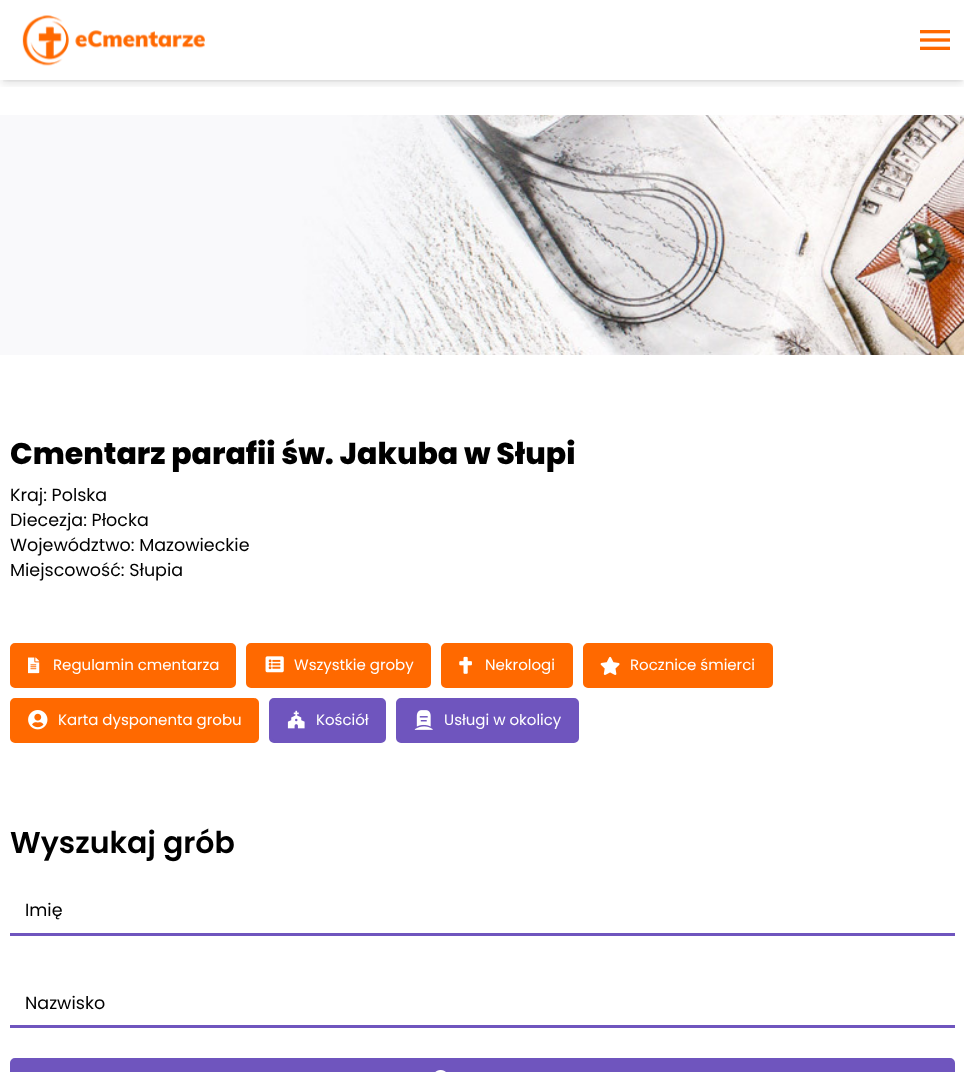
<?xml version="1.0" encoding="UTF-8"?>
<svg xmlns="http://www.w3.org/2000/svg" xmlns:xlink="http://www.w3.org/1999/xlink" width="964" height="1072">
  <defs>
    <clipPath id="clip1"><rect x="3" y="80" width="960" height="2" /></clipPath>
    <clipPath id="clip2"><rect x="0" y="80" width="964" height="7" /></clipPath>
  </defs>
  <rect width="100%" height="100%" fill="#ffffff" />
  <g clip-path="url(#clip1)">
    <rect x="3" y="5" width="960" height="75" fill="#000000" fill-opacity="0.1" filter="blur(2.5px)" />
  </g>
  <g clip-path="url(#clip2)">
    <rect x="1" y="6" width="963" height="78" fill="#000000" fill-opacity="0.1" filter="blur(4px)" />
  </g>
  <image x="22" y="15" width="183" height="51" xlink:href="image1.png" />
  <image x="920" y="30" width="30" height="20" xlink:href="image2.png" />
  <image x="0" y="115" width="964" height="240" xlink:href="image3.png" />
  <rect x="11.5" y="644.5" width="223" height="42" rx="3.5" fill="#ff6900" stroke="#ff6900" stroke-width="3" />
  <image x="28" y="657" width="12" height="17" xlink:href="image4.png" />
  <rect x="247.5" y="644.5" width="182" height="42" rx="3.5" fill="#ff6900" stroke="#ff6900" stroke-width="3" />
  <image x="265" y="656" width="19" height="17" xlink:href="image5.png" />
  <rect x="442.5" y="644.5" width="129" height="42" rx="3.5" fill="#ff6900" stroke="#ff6900" stroke-width="3" />
  <image x="459" y="656" width="13" height="18" xlink:href="image6.png" />
  <rect x="584.5" y="644.5" width="187" height="42" rx="3.5" fill="#ff6900" stroke="#ff6900" stroke-width="3" />
  <image x="600" y="656" width="20" height="19" xlink:href="image7.png" />
  <rect x="11.5" y="699.5" width="246" height="42" rx="3.5" fill="#ff6900" stroke="#ff6900" stroke-width="3" />
  <image x="28" y="710" width="20" height="20" xlink:href="image8.png" />
  <rect x="270.5" y="699.5" width="114" height="42" rx="3.5" fill="#6f55be" stroke="#6f55be" stroke-width="3" />
  <image x="287" y="710" width="18" height="19" xlink:href="image9.png" />
  <rect x="397.5" y="699.5" width="180" height="42" rx="3.5" fill="#6f55be" stroke="#6f55be" stroke-width="3" />
  <image x="414" y="710" width="19" height="20" xlink:href="image10.png" />
  <rect x="10" y="933" width="945" height="3" fill="#6f55be" />
  <rect x="10" y="1025" width="945" height="3" fill="#6f55be" />
  <rect x="11.5" y="1059.5" width="942" height="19" rx="3.5" fill="#6f55be" stroke="#6f55be" stroke-width="3" />
  <image x="435" y="1070" width="11" height="2" xlink:href="image11.png" />
  <text x="10" y="464" style="font-family: Poppins; font-size: 30px; font-weight: 800; fill: #000000">Cmentarz parafii św. Jakuba w Słupi</text>
  <text x="10" y="501" style="font-family: Poppins; font-size: 17.5px; fill: #000000">Kraj: Polska</text>
  <text x="10" y="526" style="font-family: Poppins; font-size: 17.5px; fill: #000000">Diecezja: Płocka</text>
  <text x="10" y="551" style="font-family: Poppins; font-size: 17.5px; fill: #000000">Województwo: Mazowieckie</text>
  <text x="10" y="576" style="font-family: Poppins; font-size: 17.5px; fill: #000000">Miejscowość: Słupia</text>
  <text x="53" y="670" style="font-family: Poppins; font-size: 15px; fill: #ffffff">Regulamin cmentarza</text>
  <text x="294" y="670" style="font-family: Poppins; font-size: 15px; fill: #ffffff">Wszystkie groby</text>
  <text x="485" y="670" style="font-family: Poppins; font-size: 15px; fill: #ffffff">Nekrologi</text>
  <text x="630" y="670" style="font-family: Poppins; font-size: 15px; fill: #ffffff">Rocznice śmierci</text>
  <text x="58" y="725" style="font-family: Poppins; font-size: 15px; fill: #ffffff">Karta dysponenta grobu</text>
  <text x="316" y="725" style="font-family: Poppins; font-size: 15px; fill: #ffffff">Kościół</text>
  <text x="444" y="725" style="font-family: Poppins; font-size: 15px; fill: #ffffff">Usługi w okolicy</text>
  <text x="10" y="853" style="font-family: Poppins; font-size: 30px; font-weight: 600; fill: #000000">Wyszukaj grób</text>
  <text x="25" y="916" style="font-family: Poppins; font-size: 17.5px; fill: #000000">Imię</text>
  <text x="25" y="1009" style="font-family: Poppins; font-size: 17.5px; fill: #000000">Nazwisko</text>
</svg>
